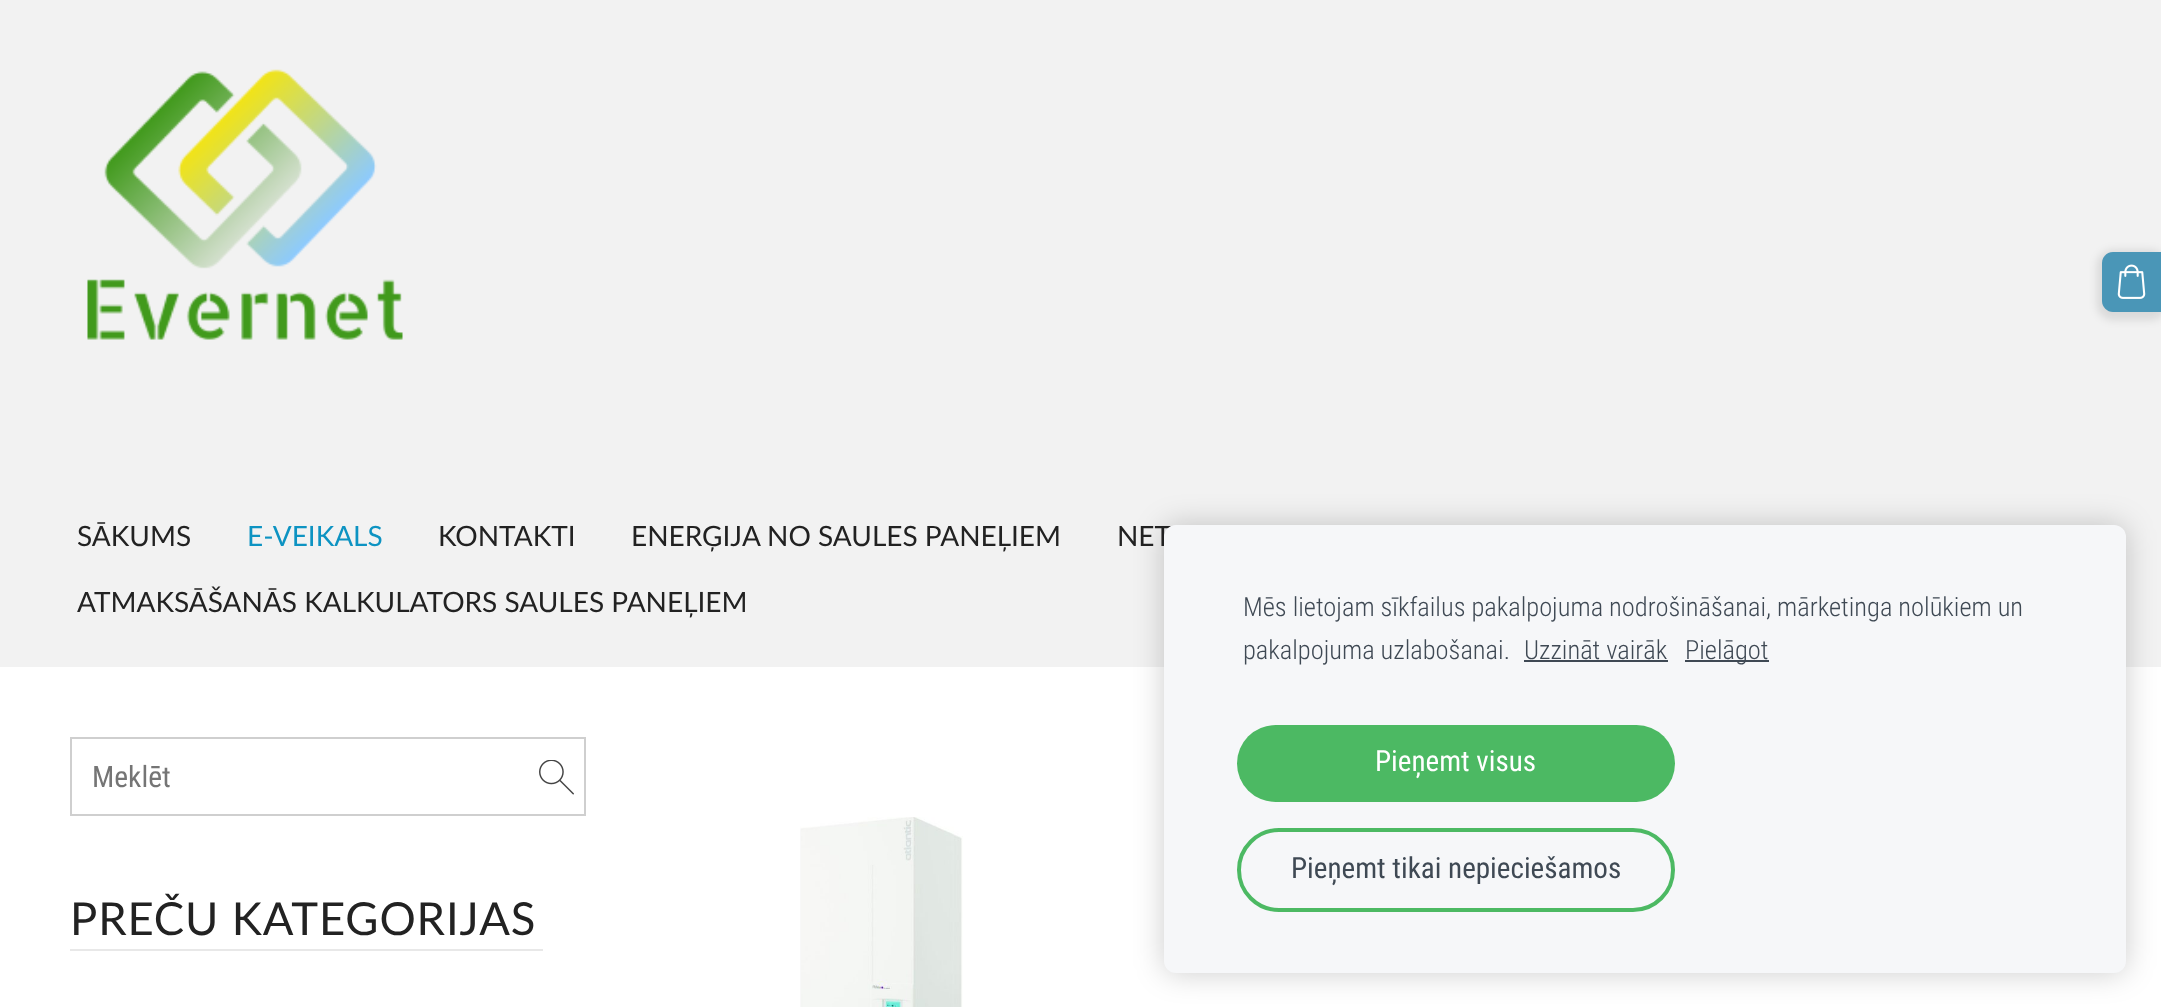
<?xml version="1.0" encoding="UTF-8"?>
<svg xmlns="http://www.w3.org/2000/svg" xmlns:xlink="http://www.w3.org/1999/xlink" width="2161" height="1007">
  <rect width="100%" height="100%" fill="#ffffff" />
  <rect width="2161" height="667" fill="#f2f2f2" />
  <rect x="2097" y="250" width="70" height="70" rx="16" fill="#000000" fill-opacity="0.1" filter="blur(4.5px)" />
  <path d="M 2113 252 h 48 v 60 h -48 c -6 0 -11 -5 -11 -11 v -38 c 0 -6 5 -11 11 -11 z" fill="#4a96b7" />
  <image x="2117" y="264" width="29" height="35" xlink:href="image1.png" />
  <image x="87" y="69" width="316" height="271" xlink:href="image2.png" />
  <rect x="71" y="738" width="514" height="77" fill="none" stroke="#cfcfcf" stroke-width="2" />
  <image x="539" y="760" width="35" height="35" xlink:href="image3.png" />
  <rect x="70" y="949" width="473" height="2" fill="#e8e8e8" />
  <image x="800" y="817" width="163" height="190" xlink:href="image4.png" />
  <rect x="1164" y="525" width="962" height="448" rx="12" fill="#000000" fill-opacity="0.2" filter="blur(15px)" />
  <text x="77" y="546" style="font-family: Lato; font-size: 28px; fill: #222222">SĀKUMS</text>
  <text x="247" y="546" style="font-family: Lato; font-size: 28px; fill: #0d93c2">E-VEIKALS</text>
  <text x="438" y="546" style="font-family: Lato; font-size: 28px; fill: #222222">KONTAKTI</text>
  <text x="631" y="546" style="font-family: Lato; font-size: 28px; fill: #222222">ENERĢIJA NO SAULES PANEĻIEM</text>
  <text x="1117" y="546" style="font-family: Lato; font-size: 28px; fill: #222222">NET</text>
  <text x="77" y="612" style="font-family: Lato; font-size: 28px; fill: #222222">ATMAKSĀŠANĀS KALKULATORS SAULES PANEĻIEM</text>
  <text x="92" y="787" style="font-family: Roboto Condensed; font-size: 29.5px; fill: #757575">Meklēt</text>
  <text x="70" y="935" style="font-family: Lato; font-size: 45.4px; letter-spacing: 0.9px; fill: #222222">PREČU KATEGORIJAS</text>
  <rect x="1164" y="525" width="962" height="448" rx="12" fill="#f6f7f9" />
  <text x="1243" y="616" style="font-family: Roboto Condensed; font-size: 26.45px; font-weight: 300; fill: #3f4954">Mēs lietojam sīkfailus pakalpojuma nodrošināšanai, mārketinga nolūkiem un</text>
  <text x="1243" y="659" style="font-family: Roboto Condensed; font-size: 26.45px; font-weight: 300; fill: #3f4954">pakalpojuma uzlabošanai.</text>
  <text x="1524" y="659" style="font-family: Roboto Condensed; font-size: 26.45px; font-weight: 300; fill: #3f4954">Uzzināt vairāk</text>
  <rect x="1524" y="660" width="144" height="2" fill="#3f4954" />
  <rect x="1685" y="660" width="84" height="2" fill="#3f4954" />
  <text x="1685" y="659" style="font-family: Roboto Condensed; font-size: 26.45px; font-weight: 300; fill: #3f4954">Pielāgot</text>
  <rect x="1237" y="725" width="438" height="77" rx="38.5" fill="#4cb963" />
  <text x="1375" y="771" style="font-family: Roboto Condensed; font-size: 29.1px; fill: #ffffff">Pieņemt visus</text>
  <rect x="1239" y="830" width="434" height="80" rx="40" fill="none" stroke="#4cb963" stroke-width="4" />
  <text x="1291" y="878" style="font-family: Roboto Condensed; font-size: 29.1px; fill: #3f4954">Pieņemt tikai nepieciešamos</text>
</svg>
